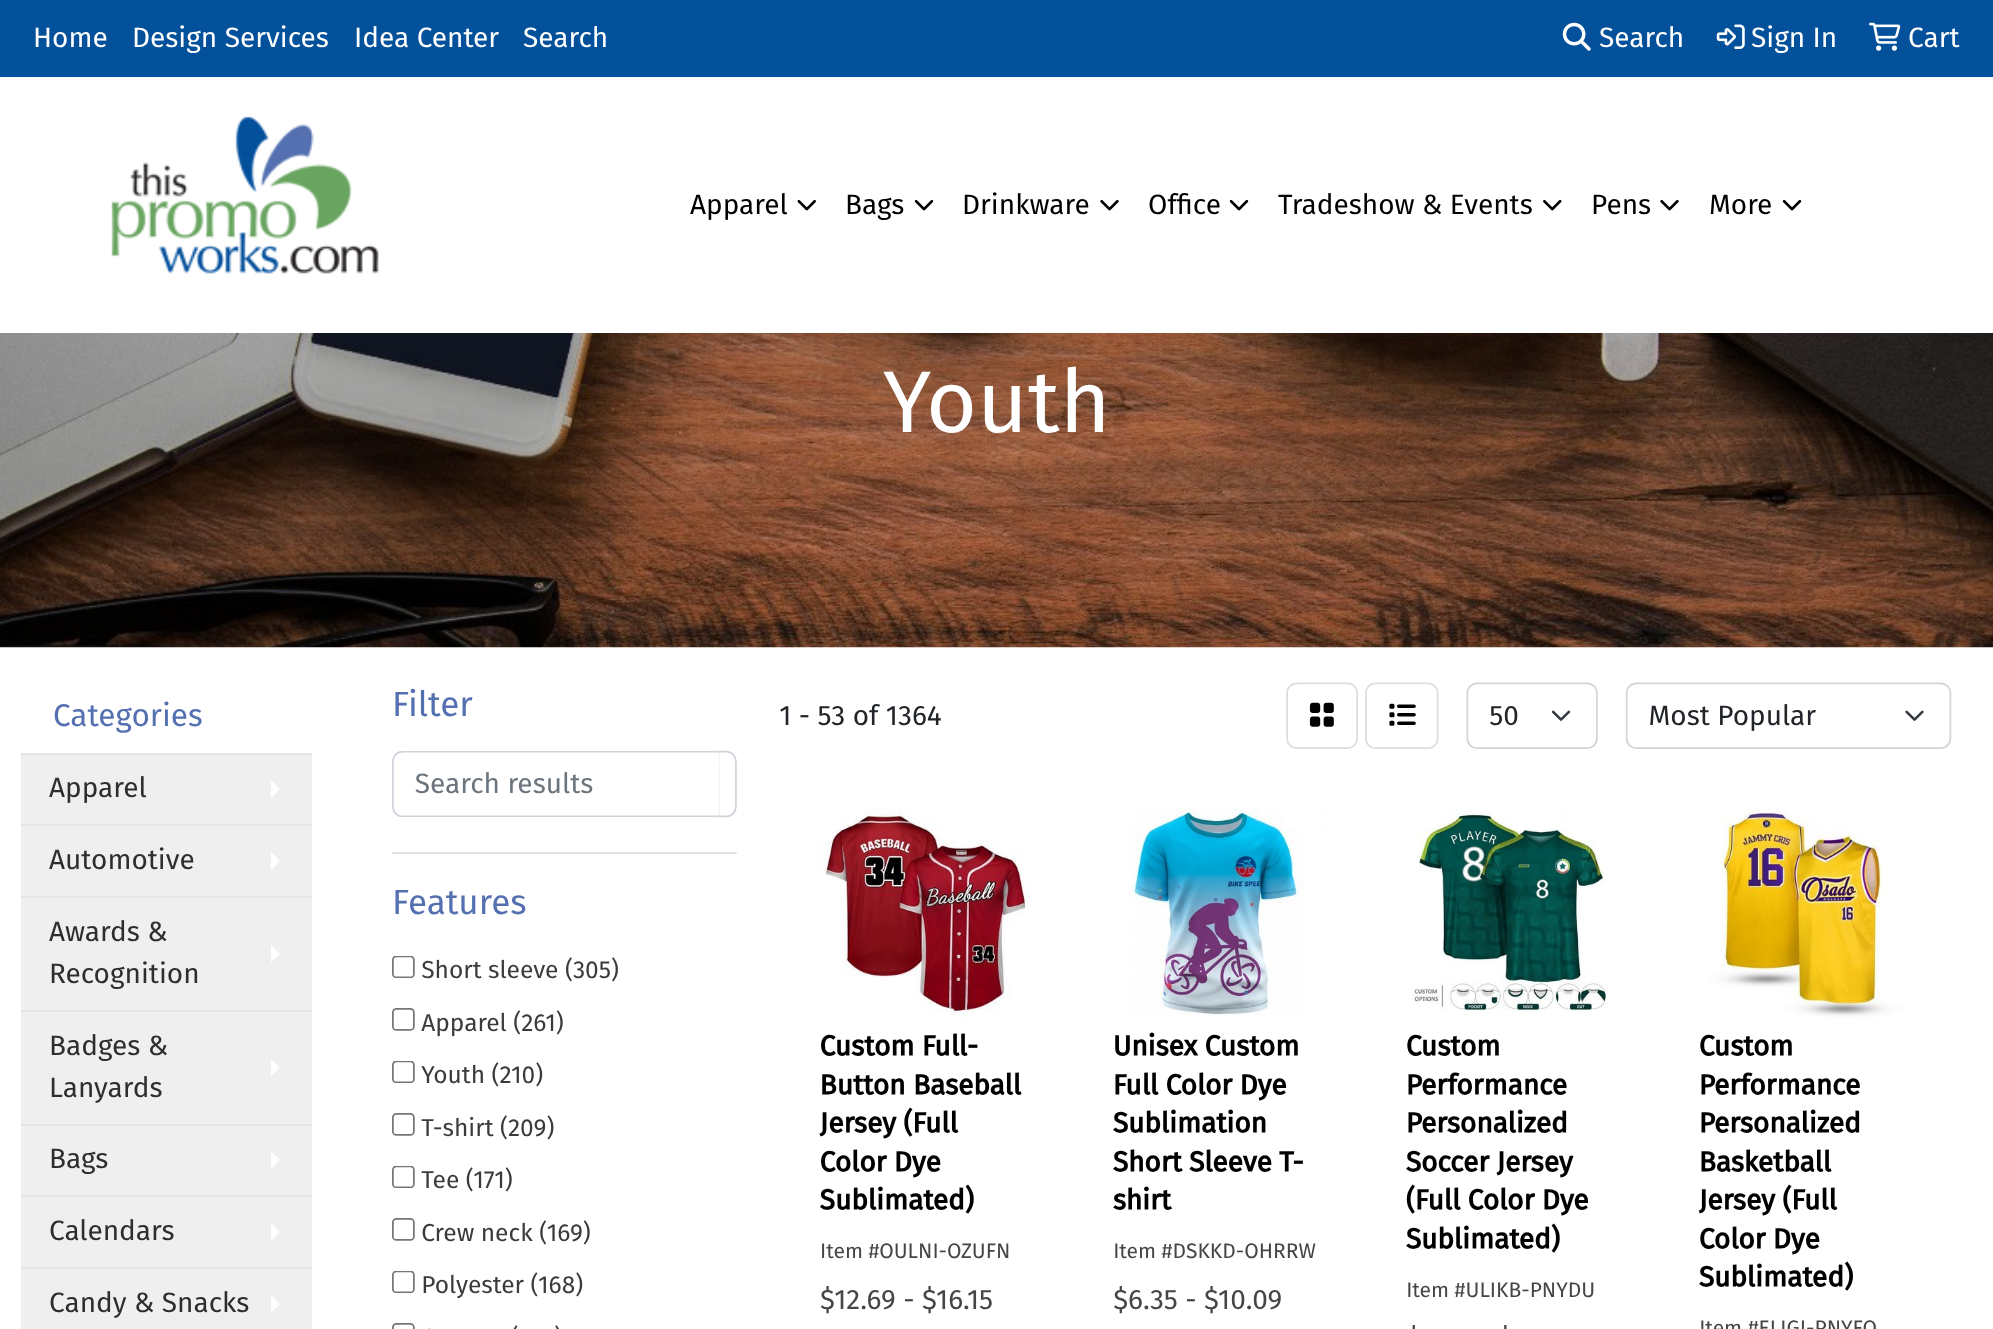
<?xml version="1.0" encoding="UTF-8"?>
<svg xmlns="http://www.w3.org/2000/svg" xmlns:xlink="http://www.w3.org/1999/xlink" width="1993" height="1329">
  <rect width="100%" height="100%" fill="#ffffff" />
  <rect width="1993" height="77" fill="#03509b" />
  <image x="1562" y="22" width="29" height="29" xlink:href="image1.png" />
  <image x="1716" y="24" width="29" height="25" xlink:href="image2.png" />
  <image x="1869" y="22" width="32" height="29" xlink:href="image3.png" />
  <image x="111" y="116" width="268" height="158" xlink:href="image4.png" />
  <image x="797" y="199" width="19" height="12" xlink:href="image5.png" />
  <image x="914" y="200" width="20" height="11" xlink:href="image6.png" />
  <image x="1100" y="199" width="19" height="12" xlink:href="image7.png" />
  <image x="1229" y="200" width="20" height="11" xlink:href="image6.png" />
  <image x="1543" y="199" width="19" height="12" xlink:href="image8.png" />
  <image x="1660" y="199" width="19" height="12" xlink:href="image7.png" />
  <image x="1782" y="200" width="20" height="11" xlink:href="image6.png" />
  <image x="0" y="333" width="1993" height="315" xlink:href="image9.png" />
  <rect x="21" y="755" width="291" height="69" fill="#efefef" />
  <rect x="21" y="753" width="291" height="2" fill="#e5e5e5" />
  <path d="M 271 798 v -17.5 l 9 8.5 z" fill="#ffffff" />
  <rect x="21" y="826" width="291" height="70" fill="#efefef" />
  <rect x="21" y="824" width="291" height="2" fill="#e5e5e5" />
  <path d="M 271 870 v -18 l 9 9 z" fill="#ffffff" />
  <rect x="21" y="898" width="291" height="112" fill="#efefef" />
  <rect x="21" y="896" width="291" height="2" fill="#e5e5e5" />
  <path d="M 271 962.5 v -17.5 l 9 9 z" fill="#ffffff" />
  <rect x="21" y="1012" width="291" height="112" fill="#efefef" />
  <rect x="21" y="1010" width="291" height="2" fill="#e5e5e5" />
  <path d="M 271 1076 v -17 l 9 8.5 z" fill="#ffffff" />
  <rect x="21" y="1126" width="291" height="69" fill="#efefef" />
  <rect x="21" y="1124" width="291" height="2" fill="#e5e5e5" />
  <path d="M 271 1169 v -17.5 l 9 8.5 z" fill="#ffffff" />
  <rect x="21" y="1197" width="291" height="70" fill="#efefef" />
  <rect x="21" y="1195" width="291" height="2" fill="#e5e5e5" />
  <path d="M 271 1241 v -18 l 9 9 z" fill="#ffffff" />
  <rect x="21" y="1269" width="291" height="60" fill="#efefef" />
  <rect x="21" y="1267" width="291" height="2" fill="#e5e5e5" />
  <path d="M 271 1312.5 v -17.5 l 9 9 z" fill="#ffffff" />
  <image x="392" y="682" width="1560" height="647" xlink:href="image10.png" />
  <text x="33" y="47" style="font-family: Fira Sans; font-size: 28px; fill: #ffffff">Home</text>
  <text x="132" y="47" style="font-family: Fira Sans; font-size: 28px; fill: #ffffff">Design Services</text>
  <text x="354" y="47" style="font-family: Fira Sans; font-size: 28px; fill: #ffffff">Idea Center</text>
  <text x="523" y="47" style="font-family: Fira Sans; font-size: 28px; fill: #ffffff">Search</text>
  <text x="1599" y="47" style="font-family: Fira Sans; font-size: 28px; fill: #ffffff">Search</text>
  <text x="1751" y="47" style="font-family: Fira Sans; font-size: 28px; fill: #ffffff">Sign In</text>
  <text x="1908" y="47" style="font-family: Fira Sans; font-size: 28px; fill: #ffffff">Cart</text>
  <text x="690" y="214" style="font-family: Fira Sans; font-size: 28px; fill: #000000">Apparel</text>
  <text x="845" y="214" style="font-family: Fira Sans; font-size: 28px; fill: #000000">Bags</text>
  <text x="962" y="214" style="font-family: Fira Sans; font-size: 28px; fill: #000000">Drinkware</text>
  <text x="1148" y="214" style="font-family: Fira Sans; font-size: 28px; fill: #000000">Office</text>
  <text x="1278" y="214" style="font-family: Fira Sans; font-size: 28px; fill: #000000">Tradeshow &amp; Events</text>
  <text x="1591" y="214" style="font-family: Fira Sans; font-size: 28px; fill: #000000">Pens</text>
  <text x="1709" y="214" style="font-family: Fira Sans; font-size: 28px; fill: #000000">More</text>
  <text x="883" y="432" style="font-family: Fira Sans; font-size: 87.5px; fill: #ffffff">Youth</text>
  <text x="53" y="726" style="font-family: Fira Sans; font-size: 31.5px; fill: #5570b0">Categories</text>
  <text x="49" y="797" style="font-family: Fira Sans; font-size: 28px; fill: #2e2e2e">Apparel</text>
  <text x="49" y="869" style="font-family: Fira Sans; font-size: 28px; fill: #2e2e2e">Automotive</text>
  <text x="49" y="941" style="font-family: Fira Sans; font-size: 28px; fill: #2e2e2e">Awards &amp;</text>
  <text x="49" y="983" style="font-family: Fira Sans; font-size: 28px; fill: #2e2e2e">Recognition</text>
  <text x="49" y="1055" style="font-family: Fira Sans; font-size: 28px; fill: #2e2e2e">Badges &amp;</text>
  <text x="49" y="1097" style="font-family: Fira Sans; font-size: 28px; fill: #2e2e2e">Lanyards</text>
  <text x="49" y="1168" style="font-family: Fira Sans; font-size: 28px; fill: #2e2e2e">Bags</text>
  <text x="49" y="1240" style="font-family: Fira Sans; font-size: 28px; fill: #2e2e2e">Calendars</text>
  <text x="49" y="1312" style="font-family: Fira Sans; font-size: 28px; fill: #2e2e2e">Candy &amp; Snacks</text>
</svg>
